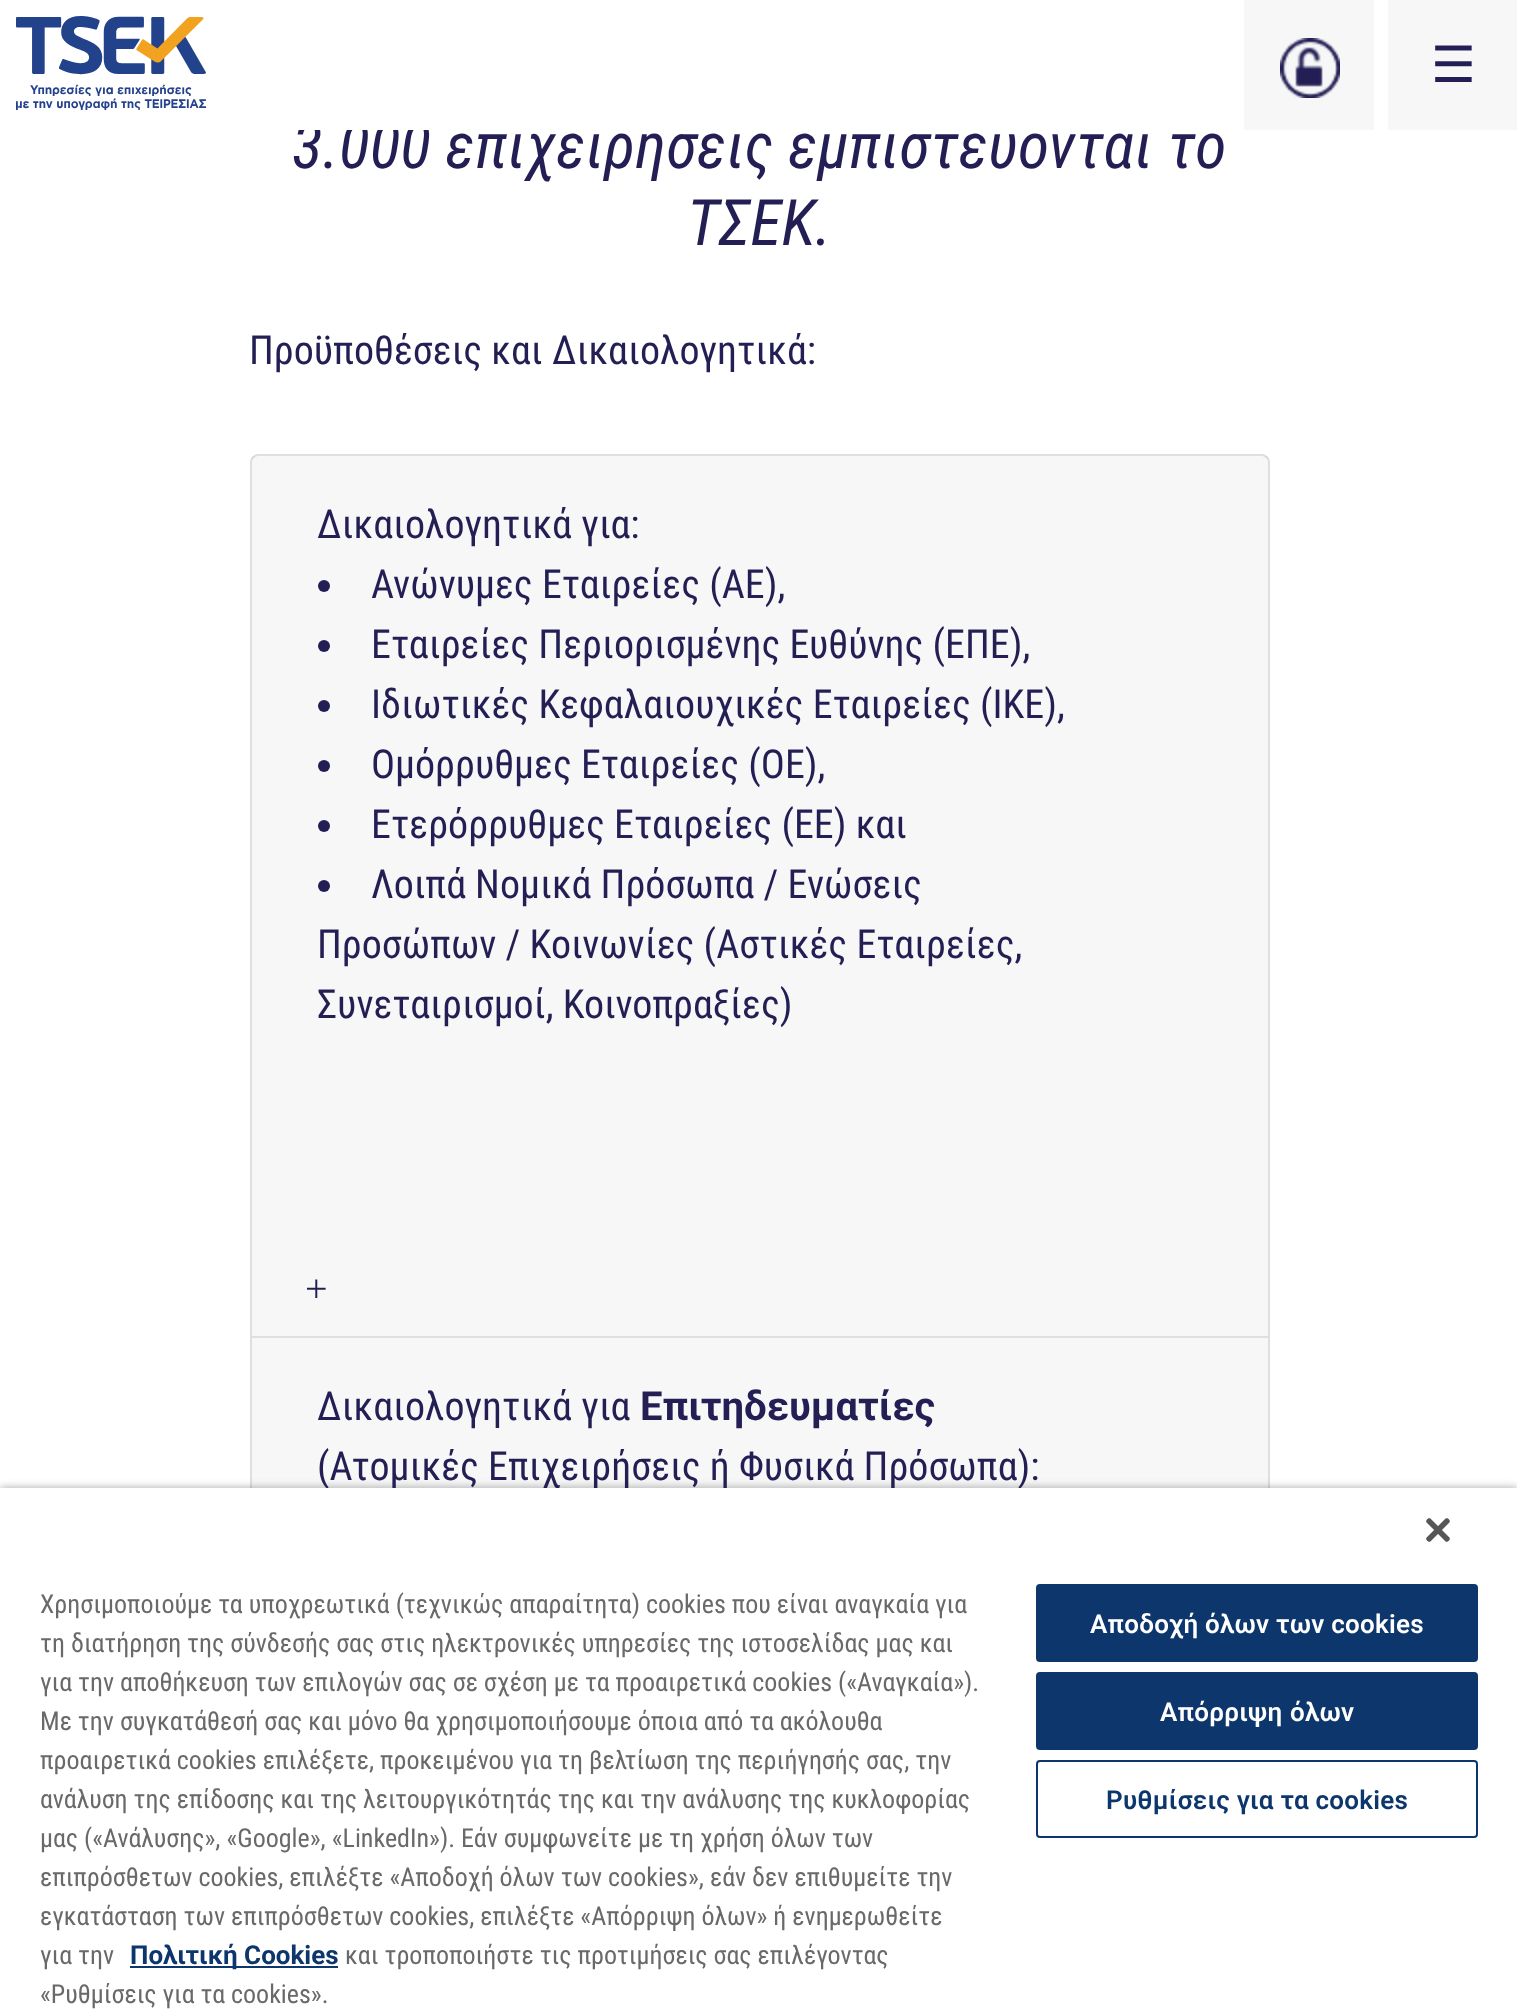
<?xml version="1.0" encoding="UTF-8"?>
<svg xmlns="http://www.w3.org/2000/svg" xmlns:xlink="http://www.w3.org/1999/xlink" width="1517" height="2013">
  <rect width="100%" height="100%" fill="#ffffff" />
  <image x="16" y="16" width="190" height="94" xlink:href="image1.png" />
  <rect x="1244" width="130" height="130" fill="#f7f7f7" />
  <image x="1280" y="38" width="60" height="60" xlink:href="image2.png" />
  <rect x="1388" width="129" height="130" fill="#f7f7f7" />
  <path d="M 258 454 h 1004 c 4 0 8 4 8 8 v 874 h -1020 v -874 c 0 -4 4 -8 8 -8 z m 0 2 h 1004 c 3 0 6 3 6 6 v 874 h -1016 v -874 c 0 -3 3 -6 6 -6 z" fill="#dfdfdf" fill-rule="evenodd" />
  <rect x="252" y="456" width="1016" height="880" fill="#000000" fill-opacity="0.03" />
  <circle cx="324" cy="586" r="6" fill="#231f55" />
  <circle cx="324" cy="646" r="6" fill="#231f55" />
  <circle cx="324" cy="706" r="6" fill="#231f55" />
  <circle cx="324" cy="766" r="6" fill="#231f55" />
  <circle cx="324" cy="826" r="6" fill="#231f55" />
  <circle cx="324" cy="886" r="6" fill="#231f55" />
  <rect x="251" y="1337" width="1018" height="246" fill="none" stroke="#dfdfdf" stroke-width="2" />
  <rect x="252" y="1338" width="1016" height="150" fill="#000000" fill-opacity="0.03" />
  <rect y="1488" width="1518" height="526" fill="#000000" fill-opacity="0.35" filter="blur(4px)" />
  <text x="1431" y="82" style="font-family: DejaVu Sans; font-size: 50px; fill: #231f55">☰</text>
  <text x="292" y="168" style="font-family: Roboto Condensed; font-size: 64px; font-style: italic; fill: #231f55">3.000 επιχειρήσεις εμπιστεύονται το</text>
  <rect x="298" y="118" width="715" height="12" fill="#ffffff" />
  <text x="687" y="245" style="font-family: Roboto Condensed; font-size: 64px; font-style: italic; fill: #231f55">ΤΣΕΚ.</text>
  <text x="249" y="364" style="font-family: Roboto Condensed; font-size: 40px; fill: #231f55">Προϋποθέσεις και Δικαιολογητικά:</text>
  <text x="317" y="538" style="font-family: Roboto Condensed; font-size: 40px; fill: #231f55">Δικαιολογητικά για:</text>
  <text x="371" y="598" style="font-family: Roboto Condensed; font-size: 40px; fill: #231f55">Ανώνυμες Εταιρείες (ΑΕ),</text>
  <text x="371" y="658" style="font-family: Roboto Condensed; font-size: 40px; fill: #231f55">Εταιρείες Περιορισμένης Ευθύνης (ΕΠΕ),</text>
  <text x="371" y="718" style="font-family: Roboto Condensed; font-size: 40px; fill: #231f55">Ιδιωτικές Κεφαλαιουχικές Εταιρείες (ΙΚΕ),</text>
  <text x="371" y="778" style="font-family: Roboto Condensed; font-size: 40px; fill: #231f55">Ομόρρυθμες Εταιρείες (ΟΕ),</text>
  <text x="371" y="838" style="font-family: Roboto Condensed; font-size: 40px; fill: #231f55">Ετερόρρυθμες Εταιρείες (ΕΕ) και</text>
  <text x="371" y="898" style="font-family: Roboto Condensed; font-size: 40px; fill: #231f55">Λοιπά Νομικά Πρόσωπα / Ενώσεις</text>
  <text x="317" y="958" style="font-family: Roboto Condensed; font-size: 40px; fill: #231f55">Προσώπων / Κοινωνίες (Αστικές Εταιρείες,</text>
  <text x="317" y="1018" style="font-family: Roboto Condensed; font-size: 40px; fill: #231f55">Συνεταιρισμοί, Κοινοπραξίες)</text>
  <text x="305" y="1302" style="font-family: Liberation Serif; font-size: 40px; fill: #231f55">+</text>
  <text x="317" y="1420" style="font-family: Roboto Condensed; font-size: 40px; fill: #231f55">Δικαιολογητικά για</text>
  <text x="640" y="1420" style="font-family: Roboto; font-size: 40px; font-weight: bold; fill: #231f55">Επιτηδευματίες</text>
  <text x="317" y="1480" style="font-family: Roboto Condensed; font-size: 40px; fill: #231f55">(Ατομικές Επιχειρήσεις ή Φυσικά Πρόσωπα):</text>
  <rect y="1488" width="1517" height="525" fill="#ffffff" />
  <image x="1426" y="1518" width="24" height="24" xlink:href="image3.png" />
  <text x="40" y="1613" style="font-family: Roboto Condensed; font-size: 26px; fill: #696969">Χρησιμοποιούμε τα υποχρεωτικά (τεχνικώς απαραίτητα) cookies που είναι αναγκαία για</text>
  <text x="40" y="1652" style="font-family: Roboto Condensed; font-size: 26px; fill: #696969">τη διατήρηση της σύνδεσής σας στις ηλεκτρονικές υπηρεσίες της ιστοσελίδας μας και</text>
  <text x="40" y="1691" style="font-family: Roboto Condensed; font-size: 26px; fill: #696969">για την αποθήκευση των επιλογών σας σε σχέση με τα προαιρετικά cookies («Αναγκαία»).</text>
  <text x="40" y="1730" style="font-family: Roboto Condensed; font-size: 26px; fill: #696969">Με την συγκατάθεσή σας και μόνο θα χρησιμοποιήσουμε όποια από τα ακόλουθα</text>
  <text x="40" y="1769" style="font-family: Roboto Condensed; font-size: 26px; fill: #696969">προαιρετικά cookies επιλέξετε, προκειμένου για τη βελτίωση της περιήγησής σας, την</text>
  <text x="40" y="1808" style="font-family: Roboto Condensed; font-size: 26px; fill: #696969">ανάλυση της επίδοσης και της λειτουργικότητάς της και την ανάλυσης της κυκλοφορίας</text>
  <text x="40" y="1847" style="font-family: Roboto Condensed; font-size: 26px; fill: #696969">μας («Ανάλυσης», «Google», «LinkedIn»). Εάν συμφωνείτε με τη χρήση όλων των</text>
  <text x="40" y="1886" style="font-family: Roboto Condensed; font-size: 26px; fill: #696969">επιπρόσθετων cookies, επιλέξτε «Αποδοχή όλων των cookies», εάν δεν επιθυμείτε την</text>
  <text x="40" y="1925" style="font-family: Roboto Condensed; font-size: 26px; fill: #696969">εγκατάσταση των επιπρόσθετων cookies, επιλέξτε «Απόρριψη όλων» ή ενημερωθείτε</text>
  <text x="40" y="1964" style="font-family: Roboto Condensed; font-size: 26px; fill: #696969">για την</text>
  <rect x="130" y="1966" width="208" height="2" fill="#0c366c" />
  <text x="130" y="1964" style="font-family: Roboto; font-size: 26px; font-weight: bold; fill: #0c366c">Πολιτική Cookies</text>
  <text x="345" y="1964" style="font-family: Roboto Condensed; font-size: 26px; fill: #696969">και τροποποιήστε τις προτιμήσεις σας επιλέγοντας</text>
  <text x="40" y="2003" style="font-family: Roboto Condensed; font-size: 26px; fill: #696969">«Ρυθμίσεις για τα cookies».</text>
  <rect x="1037" y="1585" width="440" height="76" rx="3" fill="#0c366c" stroke="#0c366c" stroke-width="2" />
  <text x="1090" y="1633" style="font-family: Roboto; font-size: 26px; font-weight: 600; letter-spacing: 0.25px; fill: #ffffff">Αποδοχή όλων των cookies</text>
  <rect x="1037" y="1673" width="440" height="76" rx="3" fill="#0c366c" stroke="#0c366c" stroke-width="2" />
  <text x="1160" y="1721" word-spacing="1" style="font-family: Roboto; font-size: 26px; font-weight: 600; letter-spacing: 0.25px; fill: #ffffff">Απόρριψη όλων</text>
  <rect x="1037" y="1761" width="440" height="76" rx="3" fill="none" stroke="#0c366c" stroke-width="2" />
  <text x="1106" y="1809" style="font-family: Roboto; font-size: 26px; font-weight: 600; letter-spacing: 0.25px; fill: #0c366c">Ρυθμίσεις για τα cookies</text>
</svg>
